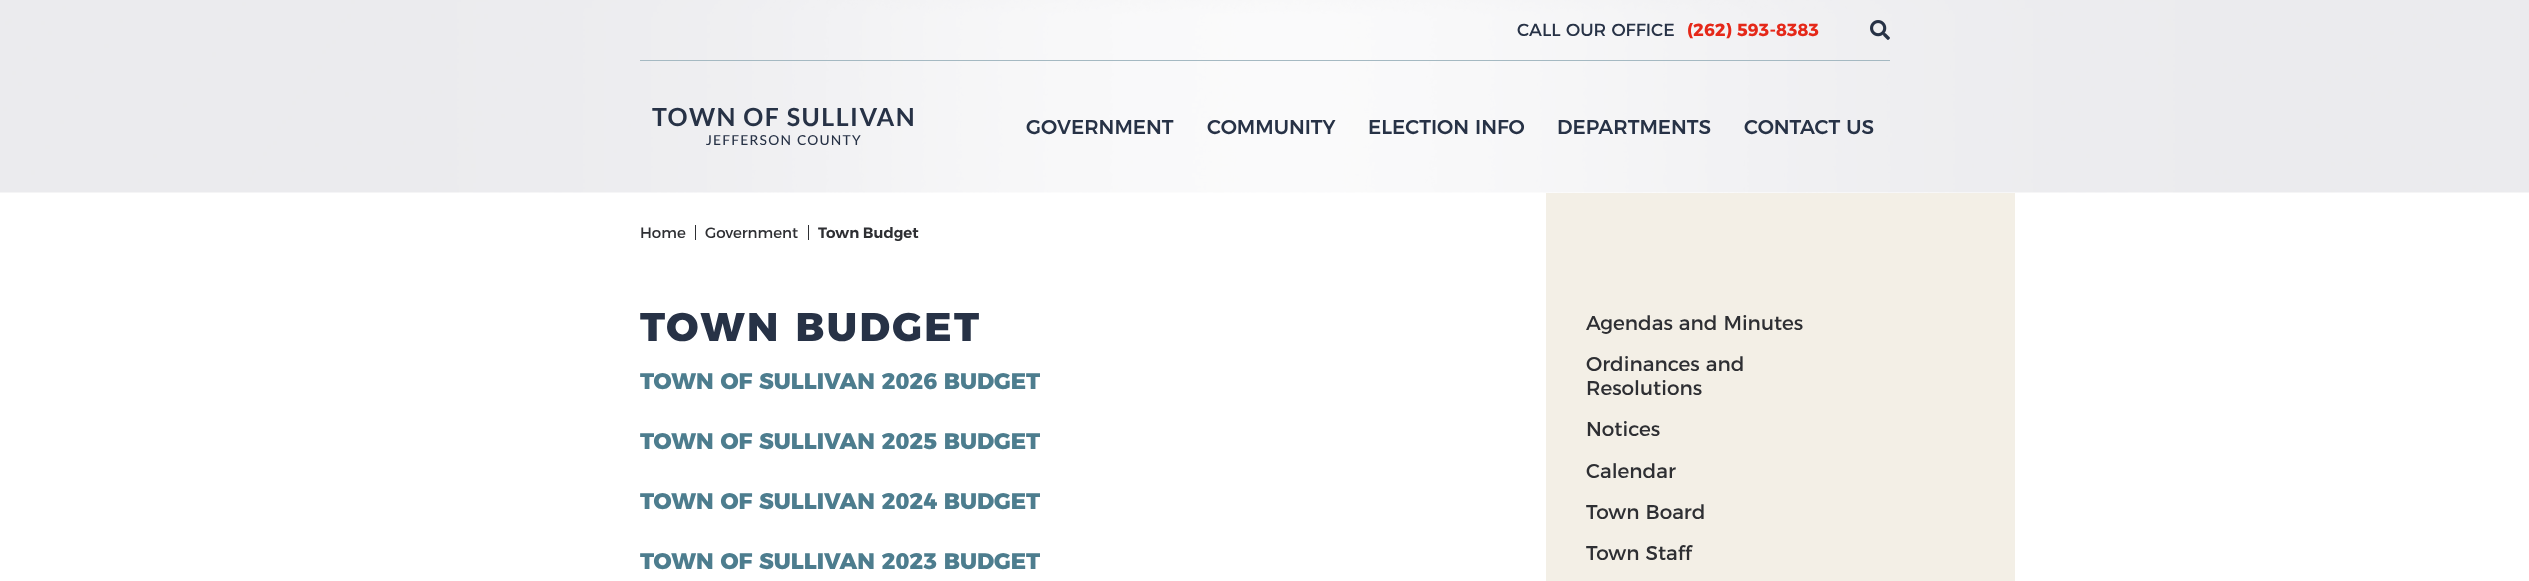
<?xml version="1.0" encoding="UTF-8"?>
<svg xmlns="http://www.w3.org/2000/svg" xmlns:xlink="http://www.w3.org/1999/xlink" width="2529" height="581">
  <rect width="100%" height="100%" fill="#ffffff" />
  <image x="0" y="0" width="2529" height="193" xlink:href="image1.png" />
  <image x="1870" y="20" width="20" height="20" xlink:href="image2.png" />
  <rect x="640" y="60" width="1250" height="1" fill="#a5b9c2" />
  <rect x="695" y="225" width="1" height="15" fill="#2e2f33" />
  <rect x="808" y="225" width="1" height="15" fill="#2e2f33" />
  <rect x="1546" y="193" width="469" height="388" fill="#f3efe6" />
  <text x="1517" y="36" style="font-family: Montserrat; font-size: 17.5px; fill: #273246">CALL OUR OFFICE</text>
  <text x="1687" y="36" style="font-family: Montserrat; font-size: 17.5px; font-weight: bold; fill: #e52819">(262) 593-8383</text>
  <text x="652" y="126" style="font-family: Lato; font-size: 25px; font-weight: bold; letter-spacing: 1.5px; fill: #273246">TOWN OF SULLIVAN</text>
  <text x="706" y="145" style="font-family: Lato; font-size: 13.75px; font-weight: 500; letter-spacing: 1.25px; fill: #273246">JEFFERSON COUNTY</text>
  <text x="1026" y="134" style="font-family: Montserrat; font-size: 20px; font-weight: 500; fill: #273246">GOVERNMENT</text>
  <text x="1207" y="134" style="font-family: Montserrat; font-size: 20px; font-weight: 500; fill: #273246">COMMUNITY</text>
  <text x="1368" y="134" style="font-family: Montserrat; font-size: 20px; font-weight: 500; fill: #273246">ELECTION INFO</text>
  <text x="1557" y="134" style="font-family: Montserrat; font-size: 20px; font-weight: 500; fill: #273246">DEPARTMENTS</text>
  <text x="1744" y="134" style="font-family: Montserrat; font-size: 20px; font-weight: 500; fill: #273246">CONTACT US</text>
  <text x="640" y="238" style="font-family: Montserrat; font-size: 15px; fill: #2e2f33">Home</text>
  <text x="705" y="238" style="font-family: Montserrat; font-size: 15px; fill: #2e2f33">Government</text>
  <text x="818" y="238" style="font-family: Montserrat; font-size: 15px; font-weight: 600; fill: #2e2f33">Town Budget</text>
  <text x="640" y="341" style="font-family: Montserrat; font-size: 40px; font-weight: 800; letter-spacing: 2.5px; fill: #273246">TOWN BUDGET</text>
  <text x="640" y="389" style="font-family: Montserrat; font-size: 22.5px; font-weight: 800; fill: #4d7d8e">TOWN OF SULLIVAN 2026 BUDGET</text>
  <text x="640" y="449" style="font-family: Montserrat; font-size: 22.5px; font-weight: 800; fill: #4d7d8e">TOWN OF SULLIVAN 2025 BUDGET</text>
  <text x="640" y="509" style="font-family: Montserrat; font-size: 22.5px; font-weight: 800; fill: #4d7d8e">TOWN OF SULLIVAN 2024 BUDGET</text>
  <text x="640" y="569" style="font-family: Montserrat; font-size: 22.5px; font-weight: 800; fill: #4d7d8e">TOWN OF SULLIVAN 2023 BUDGET</text>
  <text x="1586" y="330" style="font-family: Montserrat; font-size: 20px; fill: #2e2f33">Agendas and Minutes</text>
  <text x="1586" y="371" style="font-family: Montserrat; font-size: 20px; fill: #2e2f33">Ordinances and</text>
  <text x="1586" y="395" style="font-family: Montserrat; font-size: 20px; fill: #2e2f33">Resolutions</text>
  <text x="1586" y="436" style="font-family: Montserrat; font-size: 20px; fill: #2e2f33">Notices</text>
  <text x="1586" y="478" style="font-family: Montserrat; font-size: 20px; fill: #2e2f33">Calendar</text>
  <text x="1586" y="519" style="font-family: Montserrat; font-size: 20px; fill: #2e2f33">Town Board</text>
  <text x="1586" y="560" style="font-family: Montserrat; font-size: 20px; fill: #2e2f33">Town Staff</text>
</svg>
